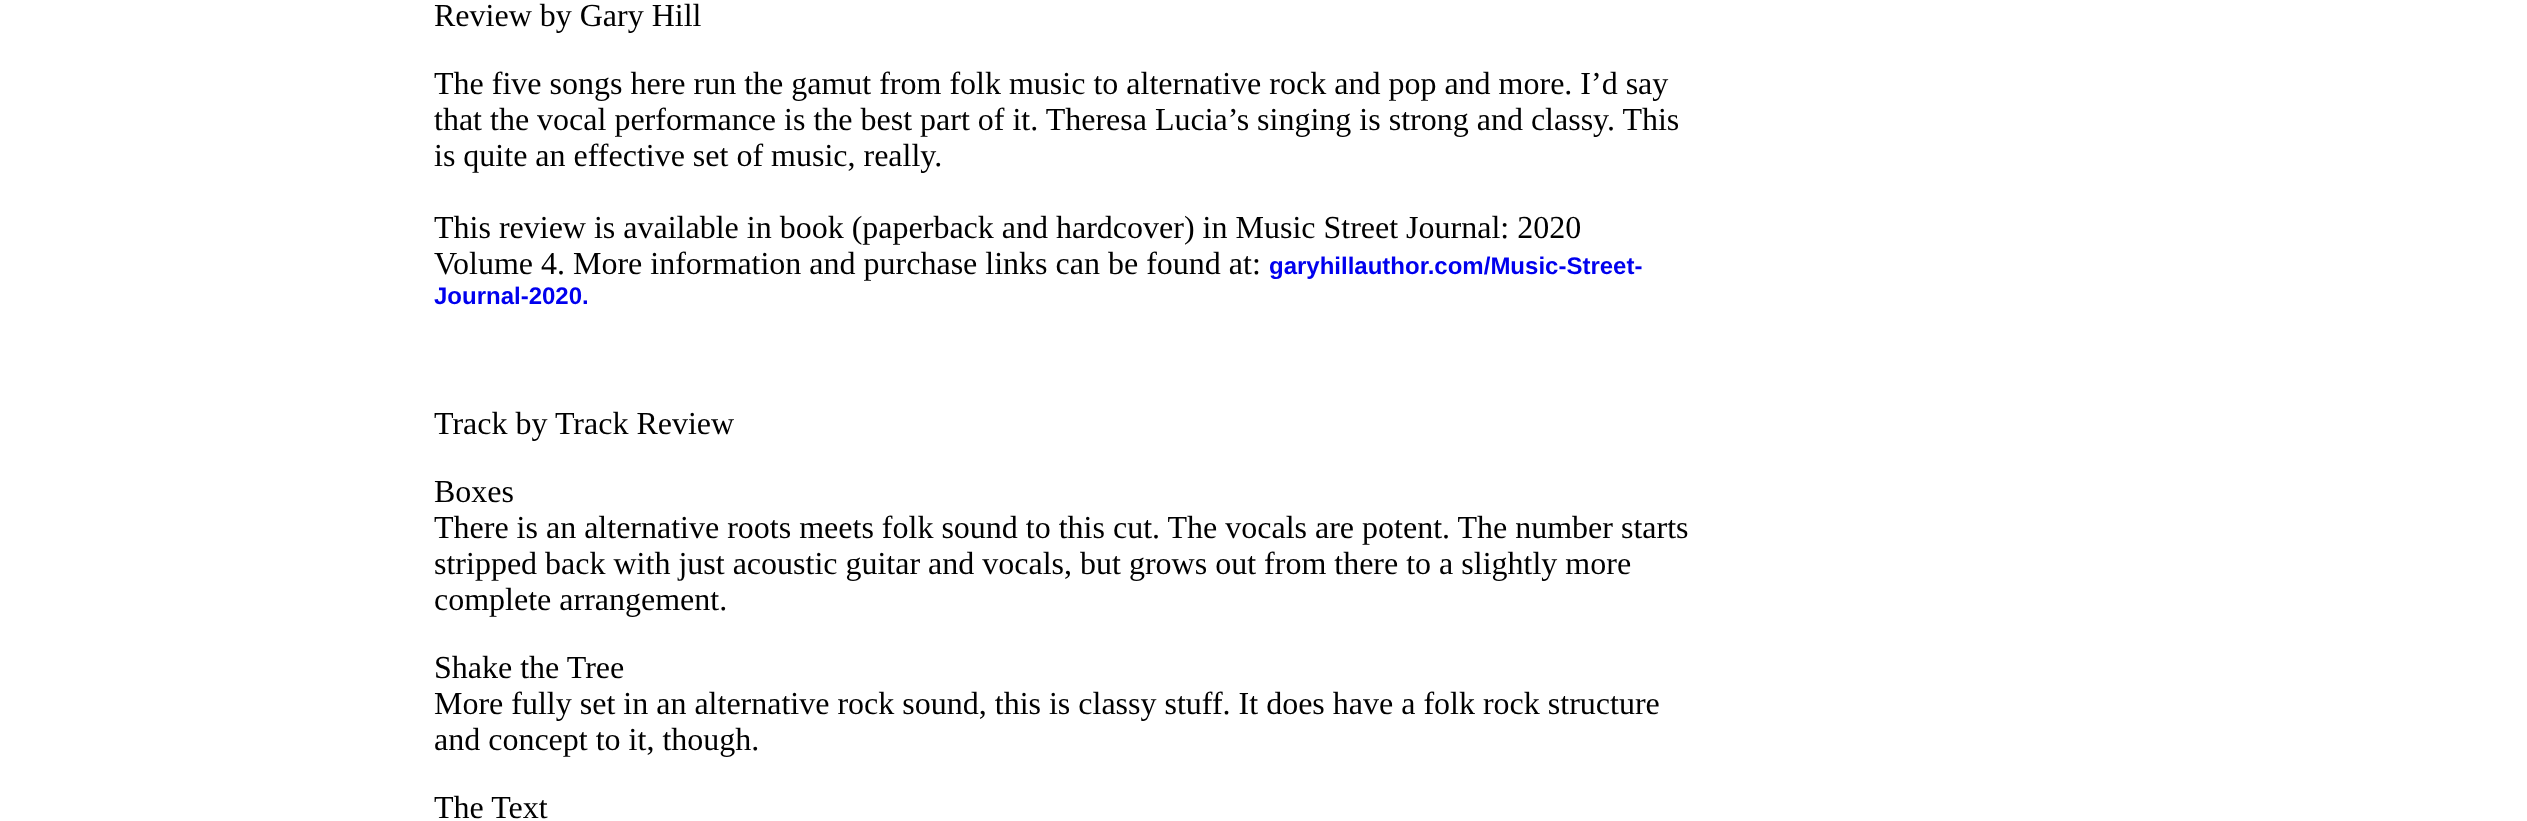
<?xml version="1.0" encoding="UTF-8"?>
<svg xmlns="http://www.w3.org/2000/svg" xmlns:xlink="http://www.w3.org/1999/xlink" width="2527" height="821">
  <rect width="100%" height="100%" fill="#ffffff" />
  <text x="434" y="26" style="font-family: Liberation Serif; font-size: 32px; fill: #000000">Review by Gary Hill</text>
  <text x="434" y="94" style="font-family: Liberation Serif; font-size: 32px; fill: #000000">The five songs here run the gamut from folk music to alternative rock and pop and more. I’d say</text>
  <text x="434" y="130" style="font-family: Liberation Serif; font-size: 32px; fill: #000000">that the vocal performance is the best part of it. Theresa Lucia’s singing is strong and classy. This</text>
  <text x="434" y="166" style="font-family: Liberation Serif; font-size: 32px; fill: #000000">is quite an effective set of music, really.</text>
  <text x="434" y="238" style="font-family: Liberation Serif; font-size: 32px; fill: #000000">This review is available in book (paperback and hardcover) in Music Street Journal: 2020</text>
  <text x="434" y="274" style="font-family: Liberation Serif; font-size: 32px; fill: #000000">Volume 4. More information and purchase links can be found at:</text>
  <text x="1269" y="274" style="font-family: Liberation Sans; font-size: 24px; font-weight: bold; fill: #0000ee">garyhillauthor.com/Music-Street-</text>
  <text x="434" y="304" style="font-family: Liberation Sans; font-size: 24px; font-weight: bold; fill: #0000ee">Journal-2020.</text>
  <text x="434" y="434" style="font-family: Liberation Serif; font-size: 32px; fill: #000000">Track by Track Review</text>
  <text x="434" y="502" style="font-family: Liberation Serif; font-size: 32px; fill: #000000">Boxes</text>
  <text x="434" y="538" style="font-family: Liberation Serif; font-size: 32px; fill: #000000">There is an alternative roots meets folk sound to this cut. The vocals are potent. The number starts</text>
  <text x="434" y="574" style="font-family: Liberation Serif; font-size: 32px; fill: #000000">stripped back with just acoustic guitar and vocals, but grows out from there to a slightly more</text>
  <text x="434" y="610" style="font-family: Liberation Serif; font-size: 32px; fill: #000000">complete arrangement.</text>
  <text x="434" y="678" style="font-family: Liberation Serif; font-size: 32px; fill: #000000">Shake the Tree</text>
  <text x="434" y="714" style="font-family: Liberation Serif; font-size: 32px; fill: #000000">More fully set in an alternative rock sound, this is classy stuff. It does have a folk rock structure</text>
  <text x="434" y="750" style="font-family: Liberation Serif; font-size: 32px; fill: #000000">and concept to it, though.</text>
  <text x="434" y="818" style="font-family: Liberation Serif; font-size: 32px; fill: #000000">The Text</text>
</svg>
